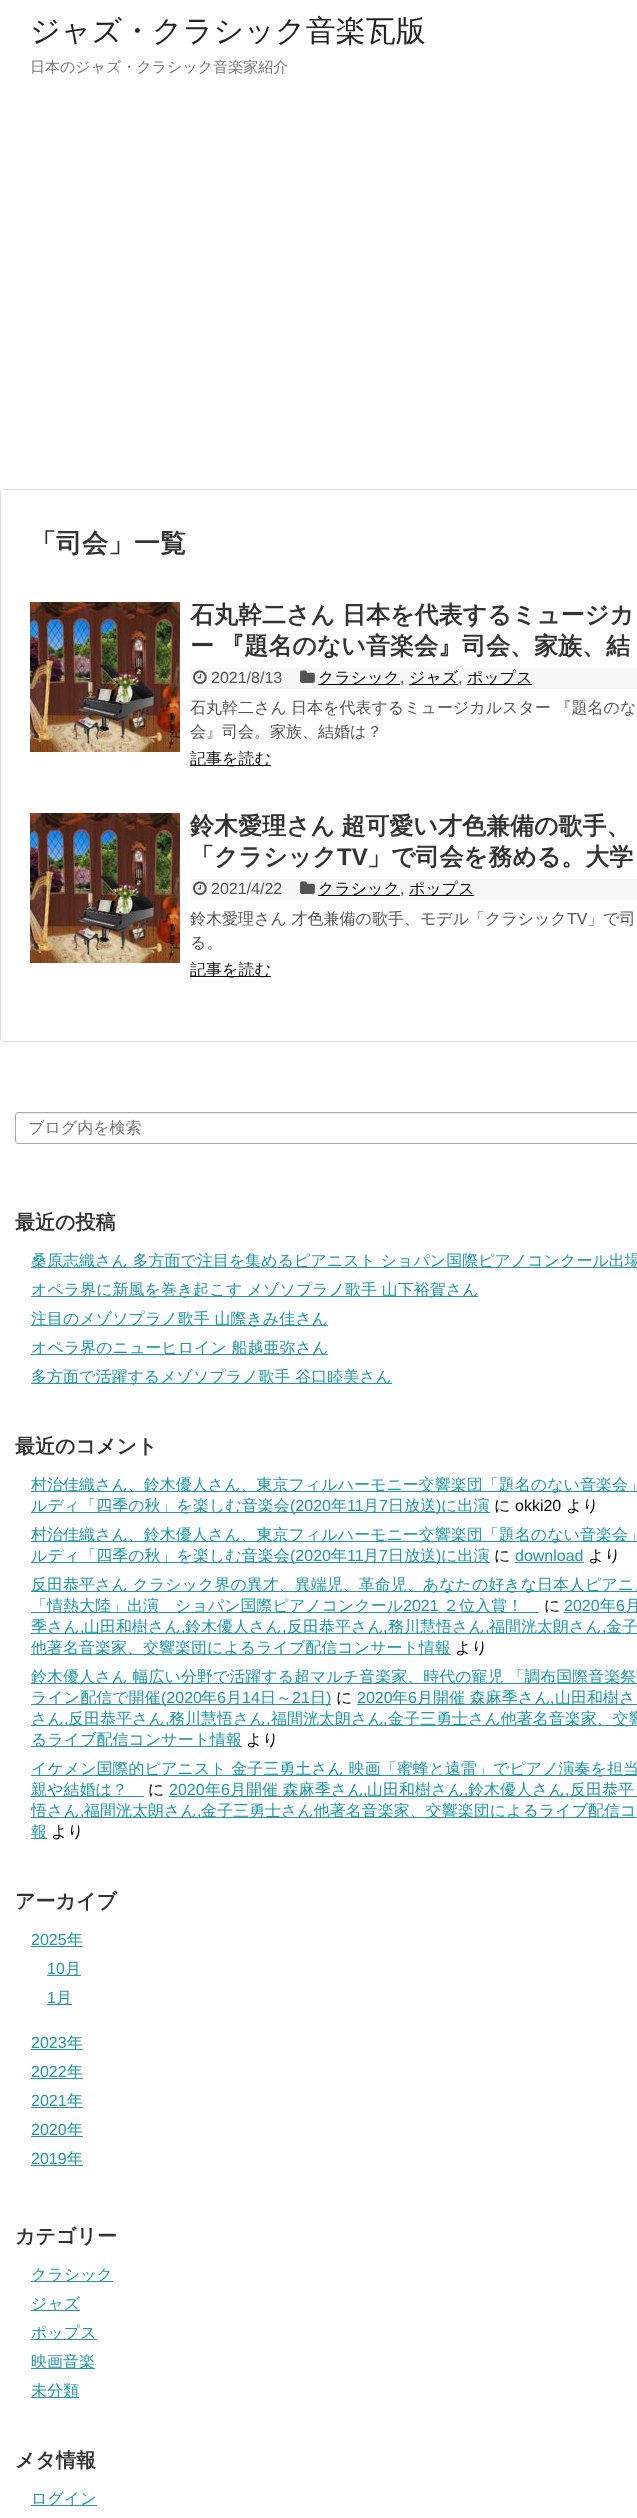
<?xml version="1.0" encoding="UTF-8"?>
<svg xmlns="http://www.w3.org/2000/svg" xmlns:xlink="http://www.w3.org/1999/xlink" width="637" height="2518">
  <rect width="100%" height="100%" fill="#ffffff" />
  <rect x="0.5" y="489.5" width="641" height="552" rx="3.5" fill="none" stroke="#dddddd" />
  <image x="30" y="602" width="150" height="150" xlink:href="image1.png" />
  <rect x="190" y="668" width="447" height="21" fill="#f7f7f7" />
  <image x="193" y="670" width="14" height="15" xlink:href="image2.png" />
  <image x="300" y="670" width="15" height="13" xlink:href="image3.png" />
  <rect x="318" y="684" width="82" height="1" fill="#000000" />
  <rect x="409" y="684" width="49" height="1" fill="#000000" />
  <rect x="467" y="684" width="65" height="1" fill="#000000" />
  <rect x="190" y="765" width="81" height="1" fill="#111111" />
  <image x="30" y="813" width="150" height="150" xlink:href="image1.png" />
  <rect x="190" y="879" width="447" height="21" fill="#f7f7f7" />
  <image x="193" y="881" width="14" height="15" xlink:href="image2.png" />
  <image x="300" y="881" width="15" height="13" xlink:href="image3.png" />
  <rect x="318" y="895" width="82" height="1" fill="#000000" />
  <rect x="409" y="895" width="65" height="1" fill="#000000" />
  <rect x="190" y="976" width="81" height="1" fill="#111111" />
  <path d="M 18 1114 h 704 c 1 0 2 1 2 2 c 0 -1 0 -3 -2 -3 h -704 c -2 0 -2 2 -2 3 c 0 -1 1 -2 2 -2 z" fill="#ececec" />
  <rect x="15.5" y="1112.5" width="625" height="31" rx="2.5" fill="none" stroke="#aaaaaa" />
  <rect x="31" y="1267" width="606" height="1" fill="#2098a8" />
  <rect x="31" y="1296" width="447" height="1" fill="#2098a8" />
  <rect x="31" y="1325" width="297" height="1" fill="#2098a8" />
  <rect x="31" y="1354" width="297" height="1" fill="#2098a8" />
  <rect x="31" y="1383" width="361" height="1" fill="#2098a8" />
  <rect x="31" y="1491" width="606" height="1" fill="#2098a8" />
  <rect x="31" y="1512" width="459" height="1" fill="#2098a8" />
  <rect x="31" y="1541" width="606" height="1" fill="#2098a8" />
  <rect x="31" y="1562" width="459" height="1" fill="#2098a8" />
  <rect x="515" y="1562" width="69" height="1" fill="#2098a8" />
  <rect x="31" y="1591" width="606" height="1" fill="#2098a8" />
  <rect x="31" y="1612" width="508" height="1" fill="#2098a8" />
  <rect x="564" y="1612" width="73" height="1" fill="#2098a8" />
  <rect x="31" y="1633" width="606" height="1" fill="#2098a8" />
  <rect x="31" y="1654" width="420" height="1" fill="#2098a8" />
  <rect x="31" y="1683" width="606" height="1" fill="#2098a8" />
  <rect x="31" y="1704" width="300" height="1" fill="#2098a8" />
  <rect x="357" y="1704" width="280" height="1" fill="#2098a8" />
  <rect x="31" y="1725" width="606" height="1" fill="#2098a8" />
  <rect x="31" y="1746" width="211" height="1" fill="#2098a8" />
  <rect x="31" y="1775" width="606" height="1" fill="#2098a8" />
  <rect x="31" y="1796" width="113" height="1" fill="#2098a8" />
  <rect x="169" y="1796" width="468" height="1" fill="#2098a8" />
  <rect x="31" y="1817" width="606" height="1" fill="#2098a8" />
  <rect x="31" y="1838" width="16" height="1" fill="#2098a8" />
  <rect x="31" y="1946" width="52" height="1" fill="#2098a8" />
  <rect x="47" y="1975" width="34" height="1" fill="#2098a8" />
  <rect x="47" y="2004" width="25" height="1" fill="#2098a8" />
  <rect x="31" y="2049" width="52" height="1" fill="#2098a8" />
  <rect x="31" y="2078" width="52" height="1" fill="#2098a8" />
  <rect x="31" y="2107" width="52" height="1" fill="#2098a8" />
  <rect x="31" y="2136" width="52" height="1" fill="#2098a8" />
  <rect x="31" y="2165" width="52" height="1" fill="#2098a8" />
  <rect x="31" y="2281" width="82" height="1" fill="#2098a8" />
  <rect x="31" y="2310" width="49" height="1" fill="#2098a8" />
  <rect x="31" y="2339" width="66" height="1" fill="#2098a8" />
  <rect x="31" y="2368" width="64" height="1" fill="#2098a8" />
  <rect x="31" y="2397" width="48" height="1" fill="#2098a8" />
  <rect x="31" y="2505" width="66" height="1" fill="#2098a8" />
  <text x="30" y="41" style="font-family: WenQuanYi Zen Hei; font-size: 30px; font-weight: 500; fill: #222222">ジャズ・クラシック音楽瓦版</text>
  <text x="30" y="72" style="font-family: WenQuanYi Zen Hei; font-size: 15px; font-weight: 500; fill: #777777">日本のジャズ・クラシック音楽家紹介</text>
  <text x="30" y="552" style="font-family: WenQuanYi Zen Hei; font-size: 26px; font-weight: bold; fill: #333333">「司会」一覧</text>
  <text x="190" y="623" style="font-family: WenQuanYi Zen Hei; font-size: 24px; font-weight: bold; fill: #333333">石丸幹二さん</text>
  <text x="342" y="623" style="font-family: WenQuanYi Zen Hei; font-size: 24px; font-weight: bold; fill: #333333">日本を代表するミュージカ</text>
  <text x="190" y="654" word-spacing="-1" style="font-family: WenQuanYi Zen Hei; font-size: 24px; font-weight: bold; fill: #333333">ー 『題名のない音楽会』司会、家族、結</text>
  <text x="211" y="683" style="font-family: Liberation Sans; font-size: 16px; fill: #555555">2021/8/13</text>
  <text x="318" y="683" style="font-family: WenQuanYi Zen Hei; font-size: 16px; font-weight: 500; fill: #000000">クラシック</text>
  <text x="400" y="683" style="font-family: Liberation Sans; font-size: 16px; fill: #555555">,</text>
  <text x="409" y="683" style="font-family: WenQuanYi Zen Hei; font-size: 16px; font-weight: 500; fill: #000000">ジャズ</text>
  <text x="458" y="683" style="font-family: Liberation Sans; font-size: 16px; fill: #555555">,</text>
  <text x="467" y="683" style="font-family: WenQuanYi Zen Hei; font-size: 16px; font-weight: 500; fill: #000000">ポップス</text>
  <text x="190" y="713" style="font-family: WenQuanYi Zen Hei; font-size: 16px; font-weight: 500; fill: #555555">石丸幹二さん</text>
  <text x="291" y="713" style="font-family: WenQuanYi Zen Hei; font-size: 16px; font-weight: 500; fill: #555555">日本を代表するミュージカルスター 『題名のな</text>
  <text x="190" y="737" style="font-family: WenQuanYi Zen Hei; font-size: 16px; font-weight: 500; fill: #555555">会』司会。家族、結婚は？</text>
  <text x="190" y="764" style="font-family: WenQuanYi Zen Hei; font-size: 16px; font-weight: 500; fill: #111111">記事を読む</text>
  <text x="190" y="834" word-spacing="-1" style="font-family: WenQuanYi Zen Hei; font-size: 24px; font-weight: bold; fill: #333333">鈴木愛理さん 超可愛い才色兼備の歌手、</text>
  <text x="190" y="865" style="font-family: WenQuanYi Zen Hei; font-size: 24px; font-weight: bold; fill: #333333">「クラシック</text>
  <text x="337" y="865" style="font-family: Liberation Sans; font-size: 24px; font-weight: bold; fill: #333333">TV</text>
  <text x="367" y="865" style="font-family: WenQuanYi Zen Hei; font-size: 24px; font-weight: bold; fill: #333333">」で司会を務める。大学</text>
  <text x="211" y="894" style="font-family: Liberation Sans; font-size: 16px; fill: #555555">2021/4/22</text>
  <text x="318" y="894" style="font-family: WenQuanYi Zen Hei; font-size: 16px; font-weight: 500; fill: #000000">クラシック</text>
  <text x="400" y="894" style="font-family: Liberation Sans; font-size: 16px; fill: #555555">,</text>
  <text x="409" y="894" style="font-family: WenQuanYi Zen Hei; font-size: 16px; font-weight: 500; fill: #000000">ポップス</text>
  <text x="190" y="924" style="font-family: WenQuanYi Zen Hei; font-size: 16px; font-weight: 500; fill: #555555">鈴木愛理さん 才色兼備の歌手、モデル「クラシック</text>
  <text x="567" y="924" style="font-family: Liberation Sans; font-size: 16px; fill: #555555">TV</text>
  <text x="587" y="924" style="font-family: WenQuanYi Zen Hei; font-size: 16px; font-weight: 500; fill: #555555">」で司</text>
  <text x="190" y="948" style="font-family: WenQuanYi Zen Hei; font-size: 16px; font-weight: 500; fill: #555555">る。</text>
  <text x="190" y="975" style="font-family: WenQuanYi Zen Hei; font-size: 16px; font-weight: 500; fill: #111111">記事を読む</text>
  <text x="28" y="1133" style="font-family: WenQuanYi Zen Hei; font-size: 16px; font-weight: 500; fill: #777777">ブログ内を検索</text>
  <text x="15" y="1229" style="font-family: WenQuanYi Zen Hei; font-size: 20px; font-weight: bold; fill: #333333">最近の投稿</text>
  <text x="31" y="1266" style="font-family: WenQuanYi Zen Hei; font-size: 16px; font-weight: 500; fill: #2098a8">桑原志織さん 多方面で注目を集めるピアニスト ショパン国際ピアノコンクール出場</text>
  <text x="31" y="1295" style="font-family: WenQuanYi Zen Hei; font-size: 16px; font-weight: 500; fill: #2098a8">オペラ界に新風を巻き起こす メゾソプラノ歌手 山下裕賀さん</text>
  <text x="31" y="1324" style="font-family: WenQuanYi Zen Hei; font-size: 16px; font-weight: 500; fill: #2098a8">注目のメゾソプラノ歌手 山際きみ佳さん</text>
  <text x="31" y="1353" style="font-family: WenQuanYi Zen Hei; font-size: 16px; font-weight: 500; fill: #2098a8">オペラ界のニューヒロイン 船越亜弥さん</text>
  <text x="31" y="1382" style="font-family: WenQuanYi Zen Hei; font-size: 16px; font-weight: 500; fill: #2098a8">多方面で活躍するメゾソプラノ歌手 谷口睦美さん</text>
  <text x="15" y="1453" style="font-family: WenQuanYi Zen Hei; font-size: 20px; font-weight: bold; fill: #333333">最近のコメント</text>
  <text x="31" y="1490" style="font-family: WenQuanYi Zen Hei; font-size: 16px; font-weight: 500; fill: #2098a8">村治佳織さん、鈴木優人さん、東京フィルハーモニー交響楽団「題名のない音楽会」</text>
  <text x="31" y="1511" style="font-family: WenQuanYi Zen Hei; font-size: 16px; font-weight: 500; fill: #2098a8">ルディ「四季の秋」を楽しむ音楽会</text>
  <text x="290" y="1511" style="font-family: Liberation Sans; font-size: 16px; fill: #2098a8">(2020</text>
  <text x="331" y="1511" style="font-family: WenQuanYi Zen Hei; font-size: 16px; font-weight: 500; fill: #2098a8">年</text>
  <text x="347" y="1511" style="font-family: Liberation Sans; font-size: 16px; fill: #2098a8">11</text>
  <text x="363" y="1511" style="font-family: WenQuanYi Zen Hei; font-size: 16px; font-weight: 500; fill: #2098a8">月</text>
  <text x="379" y="1511" style="font-family: Liberation Sans; font-size: 16px; fill: #2098a8">7</text>
  <text x="388" y="1511" style="font-family: WenQuanYi Zen Hei; font-size: 16px; font-weight: 500; fill: #2098a8">日放送</text>
  <text x="436" y="1511" style="font-family: Liberation Sans; font-size: 16px; fill: #2098a8">)</text>
  <text x="441" y="1511" style="font-family: WenQuanYi Zen Hei; font-size: 16px; font-weight: 500; fill: #2098a8">に出演</text>
  <text x="494" y="1511" style="font-family: WenQuanYi Zen Hei; font-size: 16px; font-weight: 500; fill: #000000">に</text>
  <text x="515" y="1511" style="font-family: Liberation Sans; font-size: 16px; fill: #000000">okki20</text>
  <text x="566" y="1511" style="font-family: WenQuanYi Zen Hei; font-size: 16px; font-weight: 500; fill: #000000">より</text>
  <text x="31" y="1540" style="font-family: WenQuanYi Zen Hei; font-size: 16px; font-weight: 500; fill: #2098a8">村治佳織さん、鈴木優人さん、東京フィルハーモニー交響楽団「題名のない音楽会」</text>
  <text x="31" y="1561" style="font-family: WenQuanYi Zen Hei; font-size: 16px; font-weight: 500; fill: #2098a8">ルディ「四季の秋」を楽しむ音楽会</text>
  <text x="290" y="1561" style="font-family: Liberation Sans; font-size: 16px; fill: #2098a8">(2020</text>
  <text x="331" y="1561" style="font-family: WenQuanYi Zen Hei; font-size: 16px; font-weight: 500; fill: #2098a8">年</text>
  <text x="347" y="1561" style="font-family: Liberation Sans; font-size: 16px; fill: #2098a8">11</text>
  <text x="363" y="1561" style="font-family: WenQuanYi Zen Hei; font-size: 16px; font-weight: 500; fill: #2098a8">月</text>
  <text x="379" y="1561" style="font-family: Liberation Sans; font-size: 16px; fill: #2098a8">7</text>
  <text x="388" y="1561" style="font-family: WenQuanYi Zen Hei; font-size: 16px; font-weight: 500; fill: #2098a8">日放送</text>
  <text x="436" y="1561" style="font-family: Liberation Sans; font-size: 16px; fill: #2098a8">)</text>
  <text x="441" y="1561" style="font-family: WenQuanYi Zen Hei; font-size: 16px; font-weight: 500; fill: #2098a8">に出演</text>
  <text x="494" y="1561" style="font-family: WenQuanYi Zen Hei; font-size: 16px; font-weight: 500; fill: #000000">に</text>
  <text x="515" y="1561" style="font-family: Liberation Sans; font-size: 16px; fill: #2098a8">download</text>
  <text x="588" y="1561" style="font-family: WenQuanYi Zen Hei; font-size: 16px; font-weight: 500; fill: #000000">より</text>
  <text x="31" y="1590" style="font-family: WenQuanYi Zen Hei; font-size: 16px; font-weight: 500; fill: #2098a8">反田恭平さん クラシック界の異才、異端児、革命児、あなたの好きな日本人ピアニス</text>
  <text x="31" y="1611" style="font-family: WenQuanYi Zen Hei; font-size: 16px; font-weight: 500; fill: #2098a8">「情熱大陸」出演　ショパン国際ピアノコンクール</text>
  <text x="403" y="1611" style="font-family: Liberation Sans; font-size: 16px; fill: #2098a8">2021</text>
  <text x="443" y="1611" style="font-family: WenQuanYi Zen Hei; font-size: 16px; font-weight: 500; fill: #2098a8">２位入賞！</text>
  <text x="544" y="1611" style="font-family: WenQuanYi Zen Hei; font-size: 16px; font-weight: 500; fill: #000000">に</text>
  <text x="564" y="1611" style="font-family: Liberation Sans; font-size: 16px; fill: #2098a8">2020</text>
  <text x="600" y="1611" style="font-family: WenQuanYi Zen Hei; font-size: 16px; font-weight: 500; fill: #2098a8">年</text>
  <text x="616" y="1611" style="font-family: Liberation Sans; font-size: 16px; fill: #2098a8">6</text>
  <text x="625" y="1611" style="font-family: WenQuanYi Zen Hei; font-size: 16px; font-weight: 500; fill: #2098a8">月</text>
  <text x="31" y="1632" style="font-family: WenQuanYi Zen Hei; font-size: 16px; font-weight: 500; fill: #2098a8">季さん</text>
  <text x="80" y="1632" style="font-family: Liberation Sans; font-size: 16px; fill: #2098a8">,</text>
  <text x="84" y="1632" style="font-family: WenQuanYi Zen Hei; font-size: 16px; font-weight: 500; fill: #2098a8">山田和樹さん</text>
  <text x="181" y="1632" style="font-family: Liberation Sans; font-size: 16px; fill: #2098a8">,</text>
  <text x="185" y="1632" style="font-family: WenQuanYi Zen Hei; font-size: 16px; font-weight: 500; fill: #2098a8">鈴木優人さん</text>
  <text x="282" y="1632" style="font-family: Liberation Sans; font-size: 16px; fill: #2098a8">,</text>
  <text x="287" y="1632" style="font-family: WenQuanYi Zen Hei; font-size: 16px; font-weight: 500; fill: #2098a8">反田恭平さん</text>
  <text x="383" y="1632" style="font-family: Liberation Sans; font-size: 16px; fill: #2098a8">,</text>
  <text x="388" y="1632" style="font-family: WenQuanYi Zen Hei; font-size: 16px; font-weight: 500; fill: #2098a8">務川慧悟さん</text>
  <text x="485" y="1632" style="font-family: Liberation Sans; font-size: 16px; fill: #2098a8">,</text>
  <text x="489" y="1632" style="font-family: WenQuanYi Zen Hei; font-size: 16px; font-weight: 500; fill: #2098a8">福間洸太朗さん</text>
  <text x="602" y="1632" style="font-family: Liberation Sans; font-size: 16px; fill: #2098a8">,</text>
  <text x="606" y="1632" style="font-family: WenQuanYi Zen Hei; font-size: 16px; font-weight: 500; fill: #2098a8">金子</text>
  <text x="31" y="1653" style="font-family: WenQuanYi Zen Hei; font-size: 16px; font-weight: 500; fill: #2098a8">他著名音楽家、交響楽団によるライブ配信コンサート情報</text>
  <text x="455" y="1653" style="font-family: WenQuanYi Zen Hei; font-size: 16px; font-weight: 500; fill: #000000">より</text>
  <text x="31" y="1682" style="font-family: WenQuanYi Zen Hei; font-size: 16px; font-weight: 500; fill: #2098a8">鈴木優人さん 幅広い分野で活躍する超マルチ音楽家、時代の寵児 「調布国際音楽祭</text>
  <text x="31" y="1703" style="font-family: WenQuanYi Zen Hei; font-size: 16px; font-weight: 500; fill: #2098a8">ライン配信で開催</text>
  <text x="161" y="1703" style="font-family: Liberation Sans; font-size: 16px; fill: #2098a8">(2020</text>
  <text x="201" y="1703" style="font-family: WenQuanYi Zen Hei; font-size: 16px; font-weight: 500; fill: #2098a8">年</text>
  <text x="217" y="1703" style="font-family: Liberation Sans; font-size: 16px; fill: #2098a8">6</text>
  <text x="226" y="1703" style="font-family: WenQuanYi Zen Hei; font-size: 16px; font-weight: 500; fill: #2098a8">月</text>
  <text x="242" y="1703" style="font-family: Liberation Sans; font-size: 16px; fill: #2098a8">14</text>
  <text x="260" y="1703" style="font-family: WenQuanYi Zen Hei; font-size: 16px; font-weight: 500; fill: #2098a8">日～</text>
  <text x="292" y="1703" style="font-family: Liberation Sans; font-size: 16px; fill: #2098a8">21</text>
  <text x="310" y="1703" style="font-family: WenQuanYi Zen Hei; font-size: 16px; font-weight: 500; fill: #2098a8">日</text>
  <text x="326" y="1703" style="font-family: Liberation Sans; font-size: 16px; fill: #2098a8">)</text>
  <text x="336" y="1703" style="font-family: WenQuanYi Zen Hei; font-size: 16px; font-weight: 500; fill: #000000">に</text>
  <text x="357" y="1703" style="font-family: Liberation Sans; font-size: 16px; fill: #2098a8">2020</text>
  <text x="392" y="1703" style="font-family: WenQuanYi Zen Hei; font-size: 16px; font-weight: 500; fill: #2098a8">年</text>
  <text x="408" y="1703" style="font-family: Liberation Sans; font-size: 16px; fill: #2098a8">6</text>
  <text x="417" y="1703" style="font-family: WenQuanYi Zen Hei; font-size: 16px; font-weight: 500; fill: #2098a8">月開催 森麻季さん</text>
  <text x="550" y="1703" style="font-family: Liberation Sans; font-size: 16px; fill: #2098a8">,</text>
  <text x="555" y="1703" style="font-family: WenQuanYi Zen Hei; font-size: 16px; font-weight: 500; fill: #2098a8">山田和樹さ</text>
  <text x="31" y="1724" style="font-family: WenQuanYi Zen Hei; font-size: 16px; font-weight: 500; fill: #2098a8">さん</text>
  <text x="64" y="1724" style="font-family: Liberation Sans; font-size: 16px; fill: #2098a8">,</text>
  <text x="68" y="1724" style="font-family: WenQuanYi Zen Hei; font-size: 16px; font-weight: 500; fill: #2098a8">反田恭平さん</text>
  <text x="165" y="1724" style="font-family: Liberation Sans; font-size: 16px; fill: #2098a8">,</text>
  <text x="169" y="1724" style="font-family: WenQuanYi Zen Hei; font-size: 16px; font-weight: 500; fill: #2098a8">務川慧悟さん</text>
  <text x="266" y="1724" style="font-family: Liberation Sans; font-size: 16px; fill: #2098a8">,</text>
  <text x="271" y="1724" style="font-family: WenQuanYi Zen Hei; font-size: 16px; font-weight: 500; fill: #2098a8">福間洸太朗さん</text>
  <text x="383" y="1724" style="font-family: Liberation Sans; font-size: 16px; fill: #2098a8">,</text>
  <text x="388" y="1724" style="font-family: WenQuanYi Zen Hei; font-size: 16px; font-weight: 500; fill: #2098a8">金子三勇士さん他著名音楽家、交響</text>
  <text x="31" y="1745" style="font-family: WenQuanYi Zen Hei; font-size: 16px; font-weight: 500; fill: #2098a8">るライブ配信コンサート情報</text>
  <text x="246" y="1745" style="font-family: WenQuanYi Zen Hei; font-size: 16px; font-weight: 500; fill: #000000">より</text>
  <text x="31" y="1774" style="font-family: WenQuanYi Zen Hei; font-size: 16px; font-weight: 500; fill: #2098a8">イケメン国際的ピアニスト 金子三勇土さん 映画「蜜蜂と遠雷」でピアノ演奏を担当</text>
  <text x="31" y="1795" style="font-family: WenQuanYi Zen Hei; font-size: 16px; font-weight: 500; fill: #2098a8">親や結婚は？</text>
  <text x="148" y="1795" style="font-family: WenQuanYi Zen Hei; font-size: 16px; font-weight: 500; fill: #000000">に</text>
  <text x="169" y="1795" style="font-family: Liberation Sans; font-size: 16px; fill: #2098a8">2020</text>
  <text x="205" y="1795" style="font-family: WenQuanYi Zen Hei; font-size: 16px; font-weight: 500; fill: #2098a8">年</text>
  <text x="221" y="1795" style="font-family: Liberation Sans; font-size: 16px; fill: #2098a8">6</text>
  <text x="230" y="1795" style="font-family: WenQuanYi Zen Hei; font-size: 16px; font-weight: 500; fill: #2098a8">月開催 森麻季さん</text>
  <text x="363" y="1795" style="font-family: Liberation Sans; font-size: 16px; fill: #2098a8">,</text>
  <text x="367" y="1795" style="font-family: WenQuanYi Zen Hei; font-size: 16px; font-weight: 500; fill: #2098a8">山田和樹さん</text>
  <text x="464" y="1795" style="font-family: Liberation Sans; font-size: 16px; fill: #2098a8">,</text>
  <text x="468" y="1795" style="font-family: WenQuanYi Zen Hei; font-size: 16px; font-weight: 500; fill: #2098a8">鈴木優人さん</text>
  <text x="565" y="1795" style="font-family: Liberation Sans; font-size: 16px; fill: #2098a8">,</text>
  <text x="570" y="1795" style="font-family: WenQuanYi Zen Hei; font-size: 16px; font-weight: 500; fill: #2098a8">反田恭平</text>
  <text x="31" y="1816" style="font-family: WenQuanYi Zen Hei; font-size: 16px; font-weight: 500; fill: #2098a8">悟さん</text>
  <text x="80" y="1816" style="font-family: Liberation Sans; font-size: 16px; fill: #2098a8">,</text>
  <text x="84" y="1816" style="font-family: WenQuanYi Zen Hei; font-size: 16px; font-weight: 500; fill: #2098a8">福間洸太朗さん</text>
  <text x="197" y="1816" style="font-family: Liberation Sans; font-size: 16px; fill: #2098a8">,</text>
  <text x="201" y="1816" style="font-family: WenQuanYi Zen Hei; font-size: 16px; font-weight: 500; fill: #2098a8">金子三勇士さん他著名音楽家、交響楽団によるライブ配信コ</text>
  <text x="31" y="1837" style="font-family: WenQuanYi Zen Hei; font-size: 16px; font-weight: 500; fill: #2098a8">報</text>
  <text x="51" y="1837" style="font-family: WenQuanYi Zen Hei; font-size: 16px; font-weight: 500; fill: #000000">より</text>
  <text x="15" y="1908" style="font-family: WenQuanYi Zen Hei; font-size: 20px; font-weight: bold; fill: #333333">アーカイブ</text>
  <text x="31" y="1945" style="font-family: Liberation Sans; font-size: 16px; fill: #2098a8">2025</text>
  <text x="67" y="1945" style="font-family: WenQuanYi Zen Hei; font-size: 16px; font-weight: 500; fill: #2098a8">年</text>
  <text x="47" y="1974" style="font-family: Liberation Sans; font-size: 16px; fill: #2098a8">10</text>
  <text x="65" y="1974" style="font-family: WenQuanYi Zen Hei; font-size: 16px; font-weight: 500; fill: #2098a8">月</text>
  <text x="47" y="2003" style="font-family: Liberation Sans; font-size: 16px; fill: #2098a8">1</text>
  <text x="56" y="2003" style="font-family: WenQuanYi Zen Hei; font-size: 16px; font-weight: 500; fill: #2098a8">月</text>
  <text x="31" y="2048" style="font-family: Liberation Sans; font-size: 16px; fill: #2098a8">2023</text>
  <text x="67" y="2048" style="font-family: WenQuanYi Zen Hei; font-size: 16px; font-weight: 500; fill: #2098a8">年</text>
  <text x="31" y="2077" style="font-family: Liberation Sans; font-size: 16px; fill: #2098a8">2022</text>
  <text x="67" y="2077" style="font-family: WenQuanYi Zen Hei; font-size: 16px; font-weight: 500; fill: #2098a8">年</text>
  <text x="31" y="2106" style="font-family: Liberation Sans; font-size: 16px; fill: #2098a8">2021</text>
  <text x="67" y="2106" style="font-family: WenQuanYi Zen Hei; font-size: 16px; font-weight: 500; fill: #2098a8">年</text>
  <text x="31" y="2135" style="font-family: Liberation Sans; font-size: 16px; fill: #2098a8">2020</text>
  <text x="67" y="2135" style="font-family: WenQuanYi Zen Hei; font-size: 16px; font-weight: 500; fill: #2098a8">年</text>
  <text x="31" y="2164" style="font-family: Liberation Sans; font-size: 16px; fill: #2098a8">2019</text>
  <text x="67" y="2164" style="font-family: WenQuanYi Zen Hei; font-size: 16px; font-weight: 500; fill: #2098a8">年</text>
  <text x="15" y="2243" style="font-family: WenQuanYi Zen Hei; font-size: 20px; font-weight: bold; fill: #333333">カテゴリー</text>
  <text x="31" y="2280" style="font-family: WenQuanYi Zen Hei; font-size: 16px; font-weight: 500; fill: #2098a8">クラシック</text>
  <text x="31" y="2309" style="font-family: WenQuanYi Zen Hei; font-size: 16px; font-weight: 500; fill: #2098a8">ジャズ</text>
  <text x="31" y="2338" style="font-family: WenQuanYi Zen Hei; font-size: 16px; font-weight: 500; fill: #2098a8">ポップス</text>
  <text x="31" y="2367" style="font-family: WenQuanYi Zen Hei; font-size: 16px; font-weight: 500; fill: #2098a8">映画音楽</text>
  <text x="31" y="2396" style="font-family: WenQuanYi Zen Hei; font-size: 16px; font-weight: 500; fill: #2098a8">未分類</text>
  <text x="15" y="2467" style="font-family: WenQuanYi Zen Hei; font-size: 20px; font-weight: bold; fill: #333333">メタ情報</text>
  <text x="31" y="2504" style="font-family: WenQuanYi Zen Hei; font-size: 16px; font-weight: 500; fill: #2098a8">ログイン</text>
</svg>
